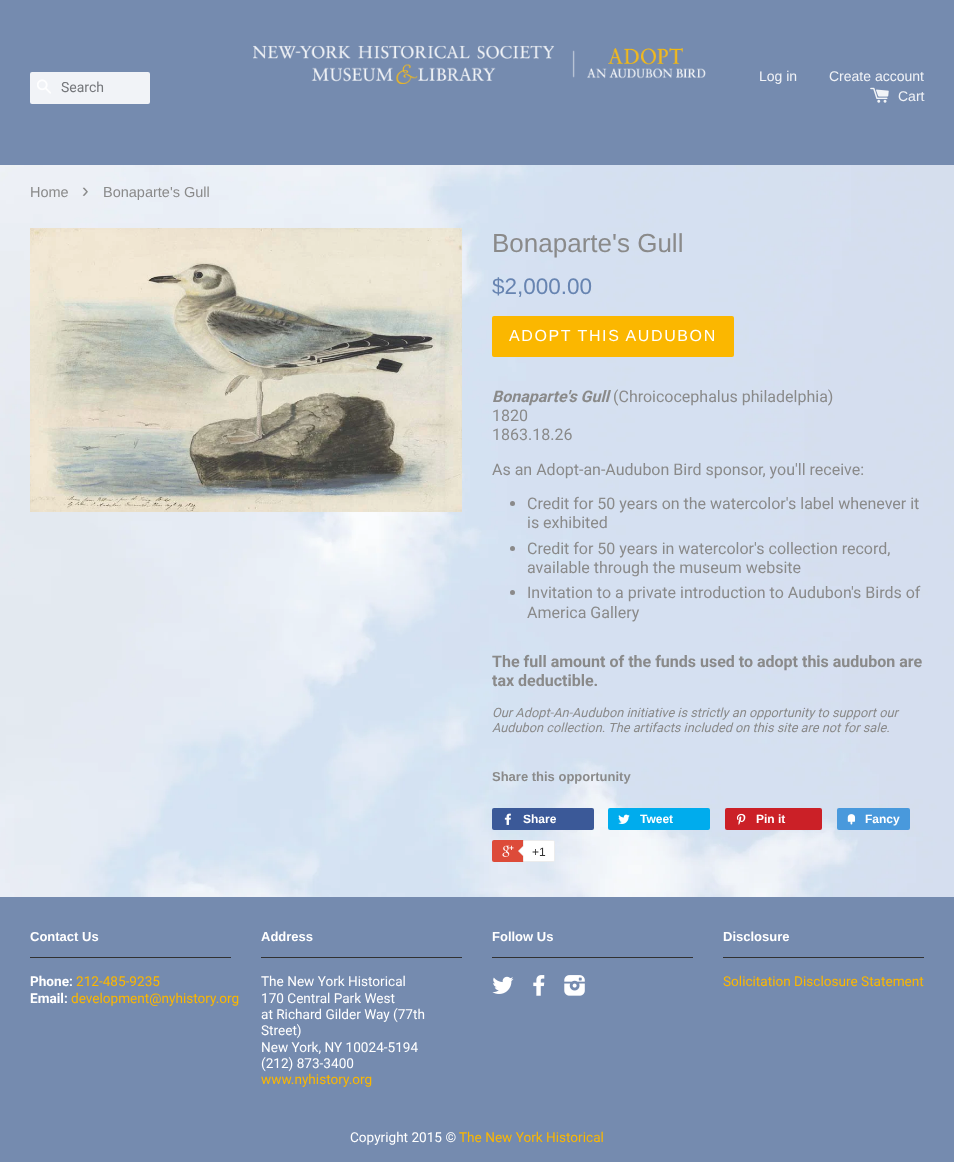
<?xml version="1.0" encoding="UTF-8"?>
<svg xmlns="http://www.w3.org/2000/svg" xmlns:xlink="http://www.w3.org/1999/xlink" width="954" height="1162">
  <rect width="100%" height="100%" fill="#ffffff" />
  <image x="0" y="165" width="954" height="732" xlink:href="image1.png" />
  <rect width="954" height="165" fill="#758baf" />
  <rect x="30" y="72" width="120" height="32" rx="2" fill="#f1f3f7" />
  <image x="37" y="79" width="14" height="15" xlink:href="image2.png" />
  <image x="253" y="45" width="453" height="39" xlink:href="image3.png" />
  <image x="870" y="87" width="19" height="16" xlink:href="image4.png" />
  <image x="30" y="228" width="432" height="284" xlink:href="image5.png" />
  <rect x="492" y="316" width="242" height="41" rx="2" fill="#fbb700" />
  <circle cx="512.5" cy="503.5" r="2.5" fill="#8a8a8a" />
  <circle cx="512.5" cy="548.5" r="2.5" fill="#8a8a8a" />
  <circle cx="512.5" cy="592.5" r="2.5" fill="#8a8a8a" />
  <rect x="492" y="808" width="102" height="22" rx="2" fill="#3b5998" />
  <image x="504" y="813" width="7" height="12" xlink:href="image6.png" />
  <rect x="608" y="808" width="102" height="22" rx="2" fill="#00aced" />
  <image x="618" y="814" width="12" height="10" xlink:href="image7.png" />
  <rect x="725" y="808" width="97" height="22" rx="2" fill="#cb2027" />
  <image x="736" y="813" width="10" height="12" xlink:href="image8.png" />
  <rect x="837" y="808" width="73" height="22" rx="2" fill="#4999dc" />
  <image x="847" y="814" width="9" height="11" xlink:href="image9.png" />
  <rect x="492" y="840" width="61" height="22" rx="2" fill="#dd4b39" />
  <image x="502" y="845" width="12" height="12" xlink:href="image10.png" />
  <path d="M 523.5 840.5 h 29.5 c 1 0 1.5 0.5 1.5 1.5 v 18 c 0 1 -0.5 1.5 -1.5 1.5 h -29.5 z" fill="#ffffff" stroke="#ececec" />
  <path d="M 524 845 v 12 l -6 -6 z" fill="#ececec" />
  <path d="M 525 845 v 12 l -6 -6 z" fill="#ffffff" />
  <rect y="897" width="954" height="265" fill="#758baf" />
  <rect x="30" y="957" width="201" height="1" fill="#313131" />
  <rect x="261" y="957" width="201" height="1" fill="#313131" />
  <rect x="492" y="957" width="201" height="1" fill="#313131" />
  <image x="492" y="976" width="22" height="18" xlink:href="image11.png" />
  <image x="533" y="975" width="12" height="21" xlink:href="image12.png" />
  <image x="564" y="975" width="21" height="21" xlink:href="image13.png" />
  <rect x="723" y="957" width="201" height="1" fill="#313131" />
  <text x="61" y="92" style="font-family: Roboto; font-size: 14px; fill: #75777b">Search</text>
  <text x="759" y="81" style="font-family: Liberation Sans; font-size: 14px; fill: #f1f3f7">Log in</text>
  <text x="829" y="81" style="font-family: Liberation Sans; font-size: 14px; fill: #f1f3f7">Create account</text>
  <text x="898" y="101" style="font-family: Liberation Sans; font-size: 14px; fill: #f1f3f7">Cart</text>
  <text x="30" y="197" style="font-family: Liberation Sans; font-size: 14.5px; fill: #8a8a8a">Home</text>
  <text x="82" y="197" style="font-family: Liberation Sans; font-size: 20px; fill: #8a8a8a">›</text>
  <text x="103" y="197" style="font-family: Liberation Sans; font-size: 14.5px; fill: #8a8a8a">Bonaparte's Gull</text>
  <text x="492" y="252" style="font-family: Liberation Sans; font-size: 26px; fill: #8a8a8a">Bonaparte's Gull</text>
  <text x="492" y="294" style="font-family: Liberation Sans; font-size: 22.5px; fill: #6784b1">$2,000.00</text>
  <text x="509" y="341" style="font-family: Liberation Sans; font-size: 16px; letter-spacing: 1.6px; fill: #ffffff">ADOPT THIS AUDUBON</text>
  <text x="492" y="402" style="font-family: Roboto; font-size: 16px; font-weight: bold; font-style: italic; fill: #8a8a8a">Bonaparte's Gull</text>
  <text x="613" y="402" style="font-family: Roboto; font-size: 16px; fill: #8a8a8a">(Chroicocephalus philadelphia)</text>
  <text x="492" y="421" style="font-family: Roboto; font-size: 16px; fill: #8a8a8a">1820</text>
  <text x="492" y="440" style="font-family: Roboto; font-size: 16px; fill: #8a8a8a">1863.18.26</text>
  <text x="492" y="475" style="font-family: Roboto; font-size: 16px; fill: #8a8a8a">As an Adopt-an-Audubon Bird sponsor, you'll receive:</text>
  <text x="527" y="509" style="font-family: Roboto; font-size: 16px; fill: #8a8a8a">Credit for 50 years on the watercolor's label whenever it</text>
  <text x="527" y="528" style="font-family: Roboto; font-size: 16px; fill: #8a8a8a">is exhibited</text>
  <text x="527" y="554" style="font-family: Roboto; font-size: 16px; fill: #8a8a8a">Credit for 50 years in watercolor's collection record,</text>
  <text x="527" y="573" style="font-family: Roboto; font-size: 16px; fill: #8a8a8a">available through the museum website</text>
  <text x="527" y="598" style="font-family: Roboto; font-size: 16px; fill: #8a8a8a">Invitation to a private introduction to Audubon's Birds of</text>
  <text x="527" y="618" style="font-family: Roboto; font-size: 16px; fill: #8a8a8a">America Gallery</text>
  <text x="492" y="667" style="font-family: Roboto; font-size: 16px; font-weight: bold; fill: #8a8a8a">The full amount of the funds used to adopt this audubon are</text>
  <text x="492" y="686" style="font-family: Roboto; font-size: 16px; font-weight: bold; fill: #8a8a8a">tax deductible.</text>
  <text x="492" y="717" style="font-family: Roboto; font-size: 12.8px; font-style: italic; fill: #8a8a8a">Our Adopt-An-Audubon initiative is strictly an opportunity to support our</text>
  <text x="492" y="732" style="font-family: Roboto; font-size: 12.8px; font-style: italic; fill: #8a8a8a">Audubon collection. The artifacts included on this site are not for sale.</text>
  <text x="492" y="781" style="font-family: Liberation Sans; font-size: 13px; font-weight: bold; fill: #8a8a8a">Share this opportunity</text>
  <text x="523" y="823" style="font-family: Liberation Sans; font-size: 12px; font-weight: bold; fill: #ffffff">Share</text>
  <text x="640" y="823" style="font-family: Liberation Sans; font-size: 12px; font-weight: bold; fill: #ffffff">Tweet</text>
  <text x="756" y="823" style="font-family: Liberation Sans; font-size: 12px; font-weight: bold; fill: #ffffff">Pin it</text>
  <text x="865" y="823" style="font-family: Liberation Sans; font-size: 12px; font-weight: bold; fill: #ffffff">Fancy</text>
  <text x="532" y="856" style="font-family: Liberation Sans; font-size: 12px; fill: #333333">+1</text>
  <text x="30" y="941" style="font-family: Liberation Sans; font-size: 13px; font-weight: bold; fill: #ffffff">Contact Us</text>
  <text x="30" y="986" style="font-family: Roboto; font-size: 13.6px; font-weight: bold; fill: #ffffff">Phone:</text>
  <text x="76" y="986" style="font-family: Roboto; font-size: 13.6px; fill: #fbb700">212-485-9235</text>
  <text x="30" y="1003" style="font-family: Roboto; font-size: 13.6px; font-weight: bold; fill: #ffffff">Email:</text>
  <text x="71" y="1003" style="font-family: Roboto; font-size: 13.6px; fill: #fbb700">development@nyhistory.org</text>
  <text x="261" y="941" style="font-family: Liberation Sans; font-size: 13px; font-weight: bold; fill: #ffffff">Address</text>
  <text x="261" y="986" style="font-family: Roboto; font-size: 13.6px; fill: #ffffff">The New York Historical</text>
  <text x="261" y="1003" style="font-family: Roboto; font-size: 13.6px; fill: #ffffff">170 Central Park West</text>
  <text x="261" y="1019" style="font-family: Roboto; font-size: 13.6px; fill: #ffffff">at Richard Gilder Way (77th</text>
  <text x="261" y="1035" style="font-family: Roboto; font-size: 13.6px; fill: #ffffff">Street)</text>
  <text x="261" y="1052" style="font-family: Roboto; font-size: 13.6px; fill: #ffffff">New York, NY 10024-5194</text>
  <text x="261" y="1068" style="font-family: Roboto; font-size: 13.6px; fill: #ffffff">(212) 873-3400</text>
  <text x="261" y="1084" style="font-family: Roboto; font-size: 13.6px; fill: #fbb700">www.nyhistory.org</text>
  <text x="492" y="941" style="font-family: Liberation Sans; font-size: 13px; font-weight: bold; fill: #ffffff">Follow Us</text>
  <text x="723" y="941" style="font-family: Liberation Sans; font-size: 13px; font-weight: bold; fill: #ffffff">Disclosure</text>
  <text x="723" y="986" style="font-family: Roboto; font-size: 13.6px; fill: #fbb700">Solicitation Disclosure Statement</text>
  <text x="350" y="1142" style="font-family: Roboto; font-size: 13.6px; fill: #ffffff">Copyright 2015 ©</text>
  <text x="459" y="1142" style="font-family: Roboto; font-size: 13.6px; fill: #fbb700">The New York Historical</text>
</svg>
